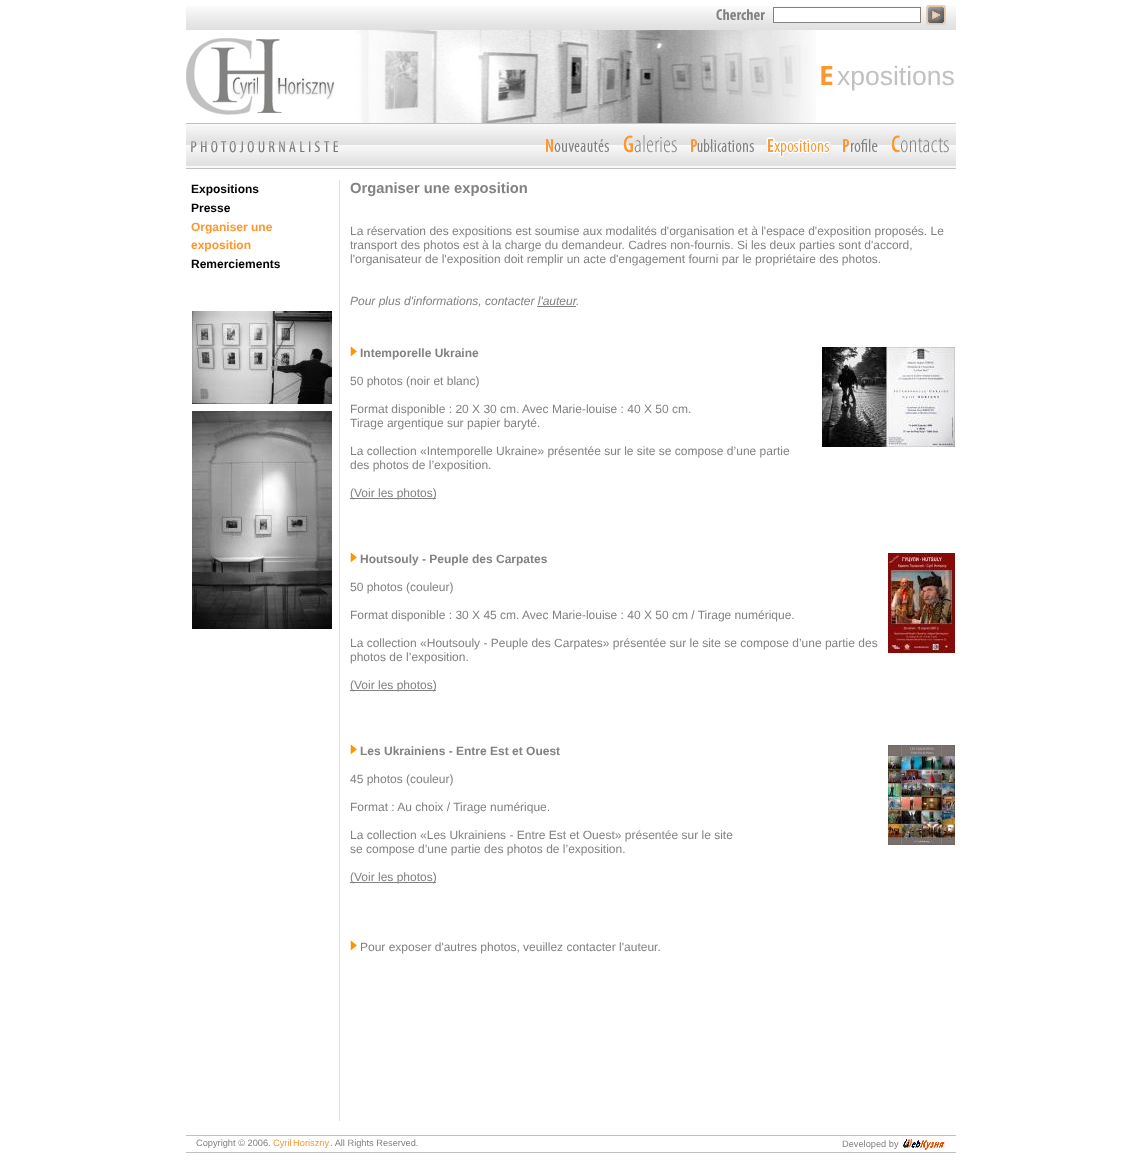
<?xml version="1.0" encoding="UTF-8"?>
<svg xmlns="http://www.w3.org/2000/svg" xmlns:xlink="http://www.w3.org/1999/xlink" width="1141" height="1161">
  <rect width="100%" height="100%" fill="#ffffff" />
  <image x="186" y="6" width="770" height="24" xlink:href="image1.png" />
  <image x="716" y="9" width="49" height="11" xlink:href="image2.png" />
  <rect x="773.5" y="7.5" width="147" height="15" fill="#ffffff" stroke="#838281" />
  <image x="926" y="5" width="20" height="20" xlink:href="image3.png" />
  <image x="186" y="38" width="149" height="77" xlink:href="image4.png" />
  <image x="356" y="30" width="460" height="93" xlink:href="image5.png" />
  <rect x="186" y="123" width="770" height="1" fill="#c2c1c1" />
  <image x="186" y="124" width="158" height="44" xlink:href="image6.png" />
  <image x="191" y="141" width="147" height="12" xlink:href="image7.png" />
  <image x="344" y="124" width="612" height="44" xlink:href="image8.png" />
  <image x="546" y="139" width="63" height="13" xlink:href="image9.png" />
  <image x="623" y="135" width="54" height="18" xlink:href="image10.png" />
  <image x="691" y="139" width="63" height="13" xlink:href="image11.png" />
  <image x="766" y="137" width="65" height="20" xlink:href="image12.png" />
  <image x="843" y="139" width="35" height="13" xlink:href="image13.png" />
  <image x="891" y="135" width="58" height="18" xlink:href="image14.png" />
  <rect x="186" y="168" width="770" height="1" fill="#c2c1c1" />
  <image x="192" y="311" width="140" height="93" xlink:href="image15.png" />
  <image x="192" y="411" width="140" height="218" xlink:href="image16.png" />
  <rect x="339" y="180" width="1" height="941" fill="#e0e0e0" />
  <rect x="537" y="306" width="39" height="1" fill="#838281" />
  <image x="350" y="346" width="7" height="11" xlink:href="image17.png" />
  <image x="822" y="347" width="133" height="100" xlink:href="image18.png" />
  <rect x="350" y="498" width="86" height="1" fill="#838281" />
  <image x="350" y="552" width="7" height="11" xlink:href="image17.png" />
  <image x="888" y="553" width="67" height="100" xlink:href="image19.png" />
  <rect x="350" y="690" width="86" height="1" fill="#838281" />
  <image x="350" y="744" width="7" height="11" xlink:href="image17.png" />
  <image x="888" y="745" width="67" height="100" xlink:href="image20.png" />
  <rect x="350" y="882" width="86" height="1" fill="#838281" />
  <image x="350" y="940" width="7" height="11" xlink:href="image17.png" />
  <rect x="186" y="1135" width="770" height="1" fill="#c2c1c1" />
  <image x="903" y="1139" width="42" height="11" xlink:href="image21.png" />
  <rect x="186" y="1152" width="770" height="1" fill="#c2c1c1" />
  <text x="819" y="85" style="font-family: Noto Sans; font-size: 26.5px; font-weight: bold; fill: #ff962f">E</text>
  <text x="837" y="85" style="font-family: Liberation Sans; font-size: 26.5px; fill: #c2c1c1">xpositions</text>
  <text x="191" y="193" style="font-family: Liberation Sans; font-size: 12px; font-weight: bold; fill: #000000">Expositions</text>
  <text x="191" y="212" style="font-family: Liberation Sans; font-size: 12px; font-weight: bold; fill: #000000">Presse</text>
  <text x="191" y="231" style="font-family: Liberation Sans; font-size: 12px; font-weight: bold; fill: #ff962f">Organiser une</text>
  <text x="191" y="249" style="font-family: Liberation Sans; font-size: 12px; font-weight: bold; fill: #ff962f">exposition</text>
  <text x="191" y="268" style="font-family: Liberation Sans; font-size: 12px; font-weight: bold; fill: #000000">Remerciements</text>
  <text x="350" y="193" style="font-family: Liberation Sans; font-size: 14.75px; font-weight: bold; fill: #838281">Organiser une exposition</text>
  <text x="350" y="235" style="font-family: Liberation Sans; font-size: 12px; fill: #838281">La réservation des expositions est soumise aux modalités d'organisation et à l'espace d'exposition proposés. Le</text>
  <text x="350" y="249" style="font-family: Liberation Sans; font-size: 12px; fill: #838281">transport des photos est à la charge du demandeur. Cadres non-fournis. Si les deux parties sont d'accord,</text>
  <text x="350" y="263" style="font-family: Liberation Sans; font-size: 12px; fill: #838281">l'organisateur de l'exposition doit remplir un acte d'engagement fourni par le propriétaire des photos.</text>
  <text x="350" y="305" style="font-family: Liberation Sans; font-size: 12px; font-style: italic; fill: #838281">Pour plus d'informations, contacter l'auteur</text>
  <text x="576" y="305" style="font-family: Liberation Sans; font-size: 12px; font-style: italic; fill: #838281">.</text>
  <text x="360" y="357" style="font-family: Liberation Sans; font-size: 12px; font-weight: bold; fill: #838281">Intemporelle Ukraine</text>
  <text x="350" y="385" style="font-family: Liberation Sans; font-size: 12px; fill: #838281">50 photos (noir et blanc)</text>
  <text x="350" y="413" style="font-family: Liberation Sans; font-size: 12px; fill: #838281">Format disponible : 20 X 30 cm. Avec Marie-louise : 40 X 50 cm.</text>
  <text x="350" y="427" style="font-family: Liberation Sans; font-size: 12px; fill: #838281">Tirage argentique sur papier baryté.</text>
  <text x="350" y="455" style="font-family: Liberation Sans; font-size: 12px; fill: #838281">La collection «Intemporelle Ukraine» présentée sur le site se compose d’une partie</text>
  <text x="350" y="469" style="font-family: Liberation Sans; font-size: 12px; fill: #838281">des photos de l’exposition.</text>
  <text x="350" y="497" style="font-family: Liberation Sans; font-size: 12px; fill: #838281">(Voir les photos)</text>
  <text x="360" y="563" style="font-family: Liberation Sans; font-size: 12px; font-weight: bold; fill: #838281">Houtsouly - Peuple des Carpates</text>
  <text x="350" y="591" style="font-family: Liberation Sans; font-size: 12px; fill: #838281">50 photos (couleur)</text>
  <text x="350" y="619" style="font-family: Liberation Sans; font-size: 12px; fill: #838281">Format disponible : 30 X 45 cm. Avec Marie-louise : 40 X 50 cm / Tirage numérique.</text>
  <text x="350" y="647" style="font-family: Liberation Sans; font-size: 12px; fill: #838281">La collection «Houtsouly - Peuple des Carpates» présentée sur le site se compose d’une partie des</text>
  <text x="350" y="661" style="font-family: Liberation Sans; font-size: 12px; fill: #838281">photos de l’exposition.</text>
  <text x="350" y="689" style="font-family: Liberation Sans; font-size: 12px; fill: #838281">(Voir les photos)</text>
  <text x="360" y="755" style="font-family: Liberation Sans; font-size: 12px; font-weight: bold; fill: #838281">Les Ukrainiens - Entre Est et Ouest</text>
  <text x="350" y="783" style="font-family: Liberation Sans; font-size: 12px; fill: #838281">45 photos (couleur)</text>
  <text x="350" y="811" style="font-family: Liberation Sans; font-size: 12px; fill: #838281">Format : Au choix / Tirage numérique.</text>
  <text x="350" y="839" style="font-family: Liberation Sans; font-size: 12px; fill: #838281">La collection «Les Ukrainiens - Entre Est et Ouest» présentée sur le site</text>
  <text x="350" y="853" style="font-family: Liberation Sans; font-size: 12px; fill: #838281">se compose d’une partie des photos de l’exposition.</text>
  <text x="350" y="881" style="font-family: Liberation Sans; font-size: 12px; fill: #838281">(Voir les photos)</text>
  <text x="360" y="951" style="font-family: Liberation Sans; font-size: 12px; fill: #838281">Pour exposer d'autres photos, veuillez contacter l'auteur.</text>
  <text x="196" y="1146" style="font-family: Liberation Sans; font-size: 9.25px; fill: #838281">Copyright © 2006.</text>
  <text x="273" y="1146" word-spacing="-1" style="font-family: Liberation Sans; font-size: 9.25px; fill: #ff962f">Cyril Horiszny</text>
  <text x="330" y="1146" style="font-family: Liberation Sans; font-size: 9.25px; fill: #838281">. All Rights Reserved.</text>
  <text x="842" y="1147" style="font-family: Liberation Sans; font-size: 9.25px; fill: #838281">Developed by</text>
</svg>
